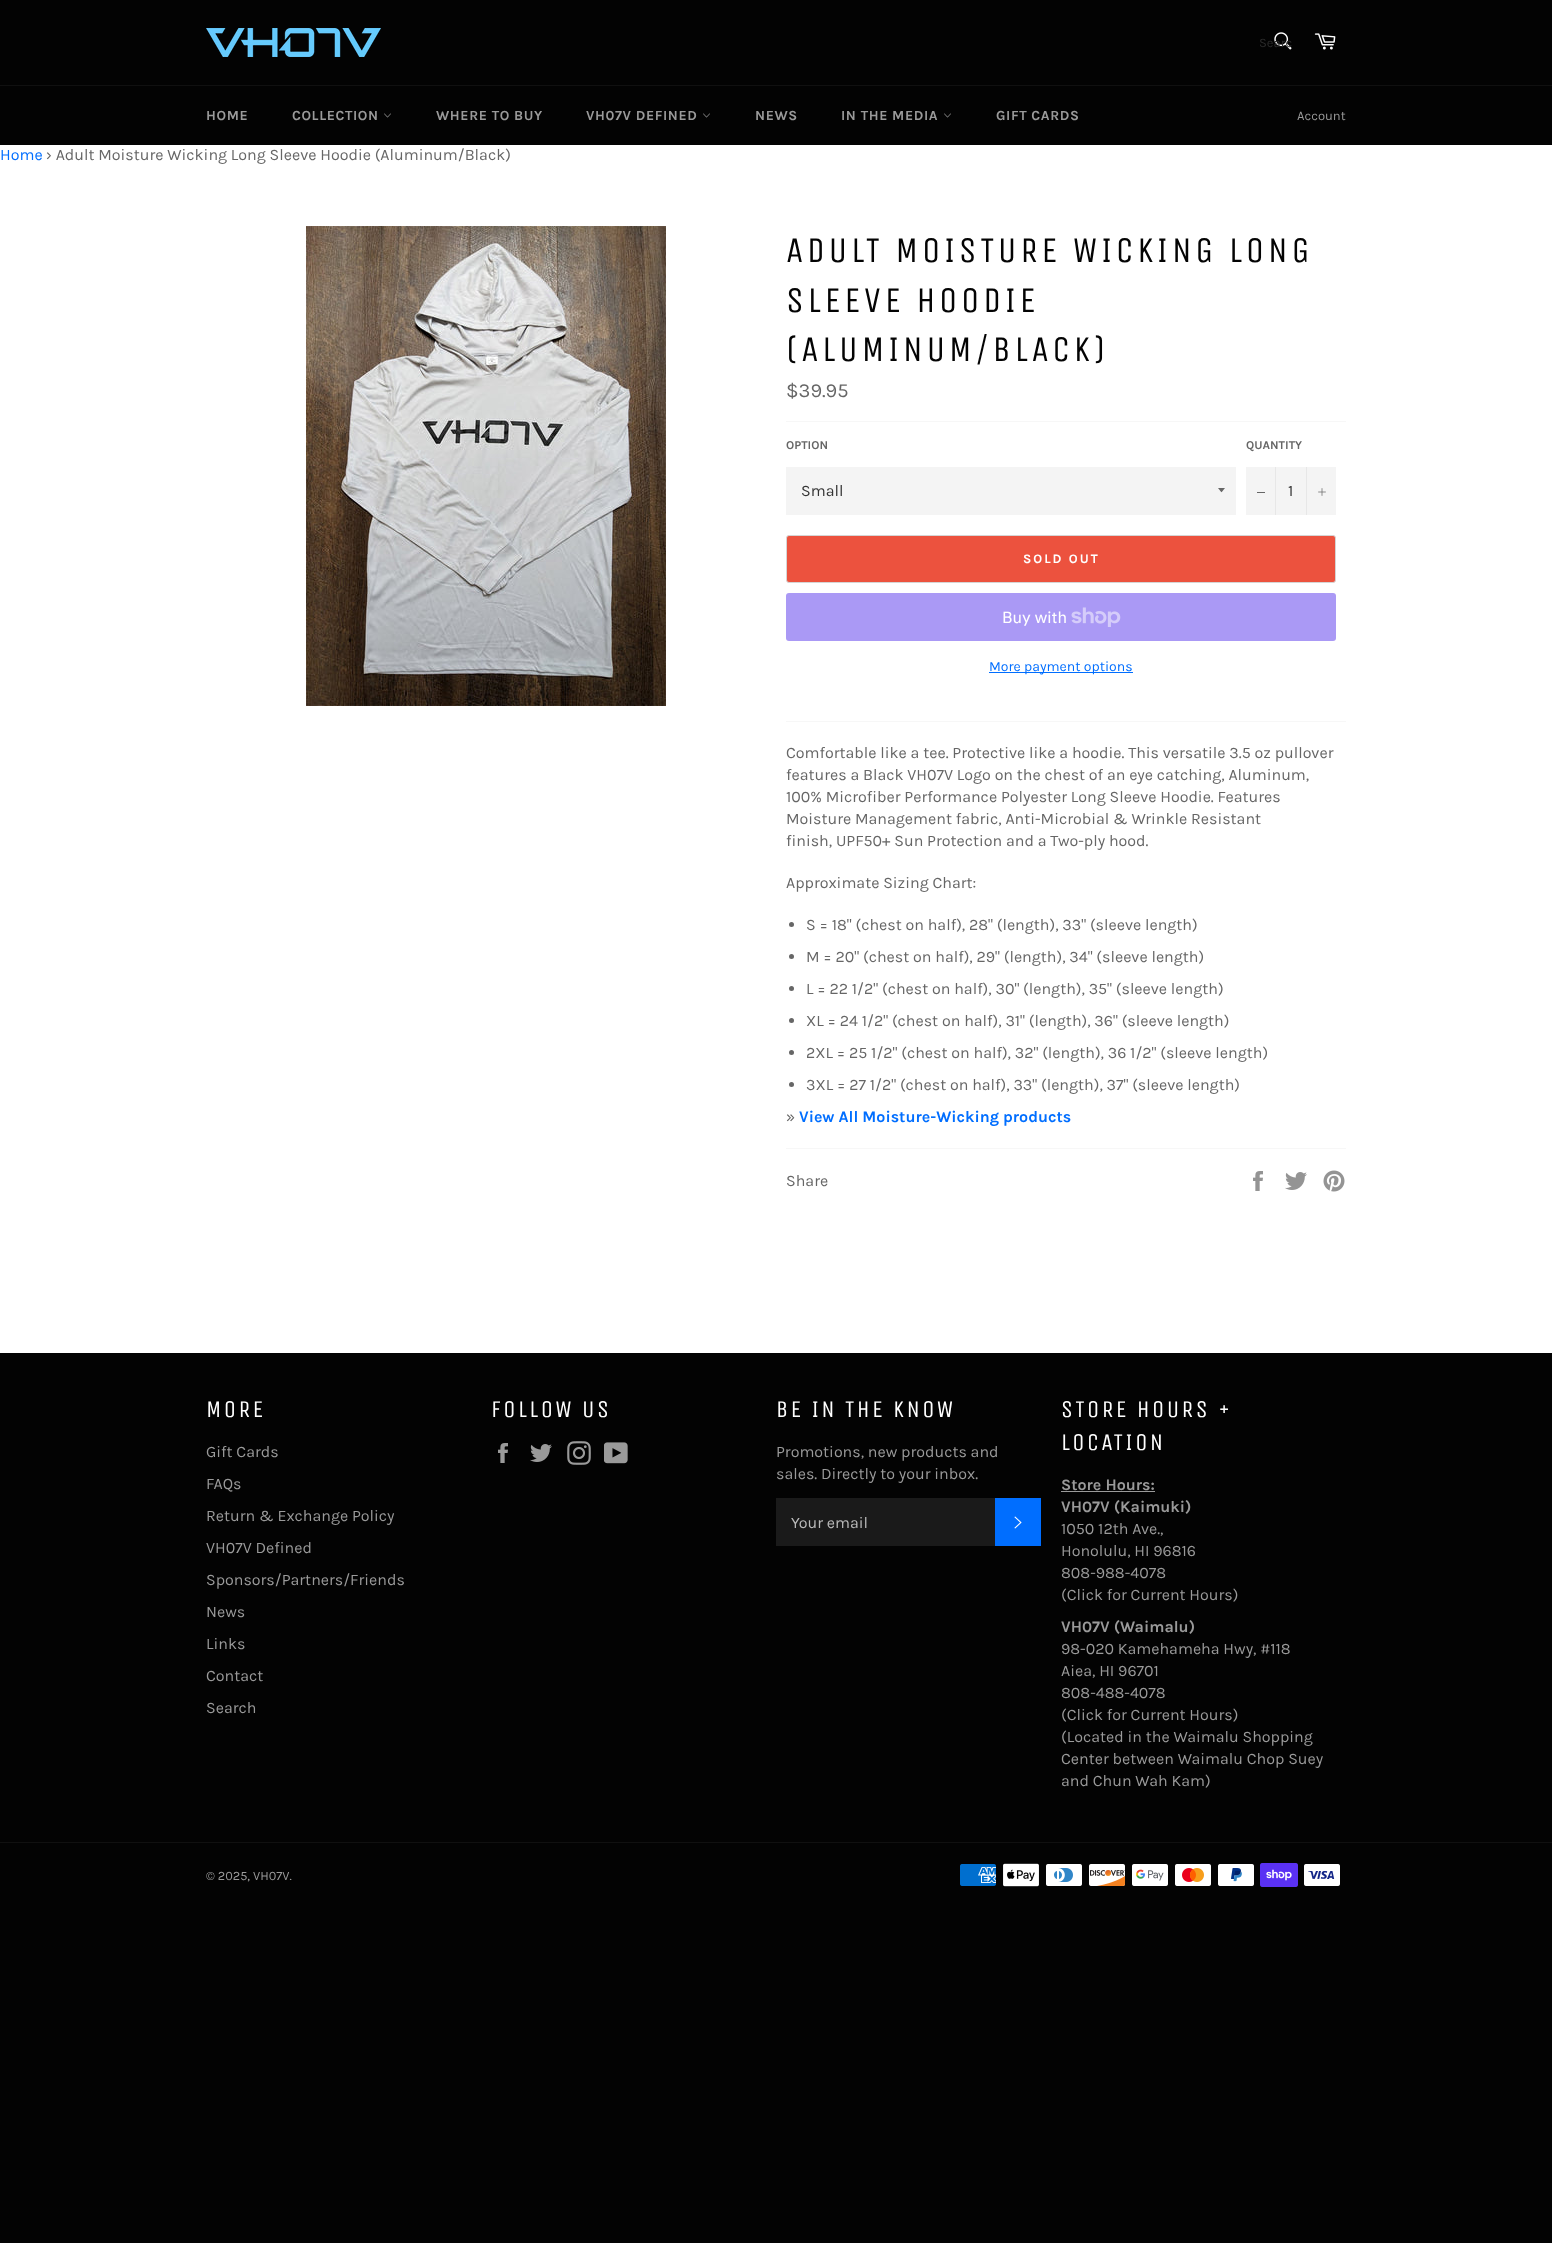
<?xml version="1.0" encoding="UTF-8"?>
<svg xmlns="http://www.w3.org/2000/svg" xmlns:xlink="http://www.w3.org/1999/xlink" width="1552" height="2243">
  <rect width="100%" height="100%" fill="#030303" />
  <image x="206" y="28" width="175" height="29" xlink:href="image1.png" />
  <image x="1274" y="32" width="18" height="18" xlink:href="image2.png" />
  <image x="1314" y="33" width="22" height="17" xlink:href="image3.png" />
  <rect y="85" width="1552" height="1" fill="#101010" />
  <image x="384" y="113" width="7" height="5" xlink:href="image4.png" />
  <image x="703" y="113" width="7" height="5" xlink:href="image4.png" />
  <image x="944" y="113" width="7" height="5" xlink:href="image4.png" />
  <rect y="145" width="1552" height="1208" fill="#ffffff" />
  <image x="306" y="226" width="360" height="480" xlink:href="image5.png" />
  <rect x="786" y="421" width="560" height="1" fill="#f7f7f7" />
  <rect x="786" y="467" width="450" height="48" fill="#f4f4f4" />
  <path d="M 1218 488 c 4.5 5.5 2.5 5.5 7 0 z" fill="#666666" />
  <rect x="1246" y="467" width="90" height="48" fill="#f4f4f4" />
  <rect x="1275" y="467" width="1" height="48" fill="#e7e7e7" />
  <rect x="1257" y="492" width="8" height="1" fill="#666666" />
  <rect x="1306" y="467" width="1" height="48" fill="#e7e7e7" />
  <image x="1318" y="488" width="8" height="8" xlink:href="image6.png" />
  <rect x="786.5" y="535.5" width="549" height="47" rx="2.5" fill="#ec523e" stroke="#d5d5d5" />
  <rect x="786" y="593" width="550" height="48" rx="3" fill="#aa99f5" />
  <image x="1071" y="607" width="50" height="20" xlink:href="image7.png" />
  <rect x="989" y="672" width="144" height="1" fill="#006eff" />
  <rect x="786" y="721" width="560" height="1" fill="#f7f7f7" />
  <circle cx="791.5" cy="924.5" r="2.5" fill="#666666" />
  <circle cx="791.5" cy="956.5" r="2.5" fill="#666666" />
  <circle cx="791.5" cy="988.5" r="2.5" fill="#666666" />
  <circle cx="791.5" cy="1020.5" r="2.5" fill="#666666" />
  <circle cx="791.5" cy="1052.5" r="2.5" fill="#666666" />
  <circle cx="791.5" cy="1084.5" r="2.5" fill="#666666" />
  <rect x="786" y="1148" width="560" height="1" fill="#f7f7f7" />
  <image x="1253" y="1171" width="10" height="20" xlink:href="image8.png" />
  <image x="1285" y="1172" width="22" height="18" xlink:href="image9.png" />
  <image x="1323" y="1170" width="22" height="22" xlink:href="image10.png" />
  <image x="498" y="1443" width="10" height="20" xlink:href="image11.png" />
  <image x="530" y="1444" width="22" height="18" xlink:href="image12.png" />
  <image x="567" y="1441" width="24" height="24" xlink:href="image13.png" />
  <image x="604" y="1442" width="24" height="22" xlink:href="image14.png" />
  <rect x="776" y="1498" width="219" height="48" fill="#1a1a1a" />
  <rect x="995" y="1498" width="46" height="48" fill="#006eff" />
  <image x="1014" y="1516" width="8" height="13" xlink:href="image15.png" />
  <rect x="1061" y="1491" width="94" height="1" fill="#9a9a9a" />
  <rect y="1842" width="1552" height="1" fill="#101010" />
  <image x="960" y="1864" width="36" height="22" xlink:href="image16.png" />
  <image x="1003" y="1863" width="36" height="24" xlink:href="image17.png" />
  <image x="1046" y="1864" width="36" height="22" xlink:href="image18.png" />
  <image x="1089" y="1864" width="37" height="22" xlink:href="image19.png" />
  <image x="1132" y="1864" width="36" height="22" xlink:href="image20.png" />
  <image x="1175" y="1864" width="36" height="22" xlink:href="image21.png" />
  <image x="1218" y="1864" width="36" height="22" xlink:href="image22.png" />
  <image x="1260" y="1863" width="38" height="24" xlink:href="image23.png" />
  <image x="1304" y="1864" width="36" height="22" xlink:href="image24.png" />
  <text x="1259" y="47" style="font-family: Karla; font-size: 13px; fill: #2b2b2b">Searc</text>
  <text x="206" y="120" style="font-family: Karla; font-size: 14px; font-weight: bold; letter-spacing: 0.6px; fill: #9a9a9a">HOME</text>
  <text x="292" y="120" style="font-family: Karla; font-size: 14px; font-weight: bold; letter-spacing: 0.6px; fill: #9a9a9a">COLLECTION</text>
  <text x="436" y="120" style="font-family: Karla; font-size: 14px; font-weight: bold; letter-spacing: 0.6px; fill: #9a9a9a">WHERE TO BUY</text>
  <text x="586" y="120" style="font-family: Karla; font-size: 14px; font-weight: bold; letter-spacing: 0.6px; fill: #9a9a9a">VH07V DEFINED</text>
  <text x="755" y="120" style="font-family: Karla; font-size: 14px; font-weight: bold; letter-spacing: 0.6px; fill: #9a9a9a">NEWS</text>
  <text x="841" y="120" style="font-family: Karla; font-size: 14px; font-weight: bold; letter-spacing: 0.6px; fill: #9a9a9a">IN THE MEDIA</text>
  <text x="996" y="120" style="font-family: Karla; font-size: 14px; font-weight: bold; letter-spacing: 0.6px; fill: #9a9a9a">GIFT CARDS</text>
  <text x="1297" y="120" style="font-family: Karla; font-size: 13px; fill: #9a9a9a">Account</text>
  <text x="0" y="160" style="font-family: Karla; font-size: 16px; fill: #006eff">Home</text>
  <text x="46" y="160" style="font-family: Karla; font-size: 16px; fill: #666666">› Adult Moisture Wicking Long Sleeve Hoodie (Aluminum/Black)</text>
  <text x="786" y="262" style="font-family: Unica One; font-size: 36px; letter-spacing: 3.6px; fill: #030303">ADULT MOISTURE WICKING LONG</text>
  <text x="786" y="312" style="font-family: Unica One; font-size: 36px; letter-spacing: 3.6px; fill: #030303">SLEEVE HOODIE</text>
  <text x="786" y="361" style="font-family: Unica One; font-size: 36px; letter-spacing: 3.6px; fill: #030303">(ALUMINUM/BLACK)</text>
  <text x="786" y="397" style="font-family: Karla; font-size: 20px; fill: #666666">$39.95</text>
  <text x="786" y="449" style="font-family: Karla; font-size: 12px; font-weight: bold; fill: #666666">OPTION</text>
  <text x="801" y="496" style="font-family: Karla; font-size: 16px; fill: #333333">Small</text>
  <text x="1246" y="449" style="font-family: Karla; font-size: 12px; font-weight: bold; fill: #666666">QUANTITY</text>
  <text x="1288" y="496" style="font-family: Karla; font-size: 16px; fill: #333333">1</text>
  <text x="1023" y="563" style="font-family: Karla; font-size: 13px; font-weight: bold; letter-spacing: 2px; fill: #ffffff">SOLD OUT</text>
  <text x="1002" y="623" style="font-family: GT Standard; font-size: 16px; fill: #ffffff">Buy with</text>
  <text x="989" y="671" style="font-family: Karla; font-size: 14px; fill: #006eff">More payment options</text>
  <text x="786" y="758" style="font-family: Karla; font-size: 16px; fill: #666666">Comfortable like a tee. Protective like a hoodie. This versatile 3.5 oz pullover</text>
  <text x="786" y="780" style="font-family: Karla; font-size: 16px; fill: #666666">features a Black VH07V Logo on the chest of an eye catching, Aluminum,</text>
  <text x="786" y="802" style="font-family: Karla; font-size: 16px; fill: #666666">100% Microfiber Performance Polyester Long Sleeve Hoodie. Features</text>
  <text x="786" y="824" style="font-family: Karla; font-size: 16px; fill: #666666">Moisture Management fabric, Anti-Microbial &amp; Wrinkle Resistant</text>
  <text x="786" y="846" style="font-family: Karla; font-size: 16px; fill: #666666">finish, UPF50+ Sun Protection and a Two-ply hood.</text>
  <text x="786" y="888" style="font-family: Karla; font-size: 16px; fill: #666666">Approximate Sizing Chart:</text>
  <text x="806" y="930" style="font-family: Karla; font-size: 16px; fill: #666666">S = 18" (chest on half), 28" (length), 33" (sleeve length)</text>
  <text x="806" y="962" style="font-family: Karla; font-size: 16px; fill: #666666">M = 20" (chest on half), 29" (length), 34" (sleeve length)</text>
  <text x="806" y="994" style="font-family: Karla; font-size: 16px; fill: #666666">L = 22 1/2" (chest on half), 30" (length), 35" (sleeve length)</text>
  <text x="806" y="1026" style="font-family: Karla; font-size: 16px; fill: #666666">XL = 24 1/2" (chest on half), 31" (length), 36" (sleeve length)</text>
  <text x="806" y="1058" style="font-family: Karla; font-size: 16px; fill: #666666">2XL = 25 1/2" (chest on half), 32" (length), 36 1/2" (sleeve length)</text>
  <text x="806" y="1090" style="font-family: Karla; font-size: 16px; fill: #666666">3XL = 27 1/2" (chest on half), 33" (length), 37" (sleeve length)</text>
  <text x="786" y="1122" style="font-family: Karla; font-size: 16px; fill: #666666">»</text>
  <text x="799" y="1122" style="font-family: Karla; font-size: 16px; font-weight: bold; fill: #006eff">View All Moisture-Wicking products</text>
  <text x="786" y="1186" style="font-family: Karla; font-size: 16px; fill: #666666">Share</text>
  <text x="206" y="1417" style="font-family: Unica One; font-size: 24px; letter-spacing: 2.4px; fill: #ffffff">MORE</text>
  <text x="206" y="1457" style="font-family: Karla; font-size: 16px; fill: #9a9a9a">Gift Cards</text>
  <text x="206" y="1489" style="font-family: Karla; font-size: 16px; fill: #9a9a9a">FAQs</text>
  <text x="206" y="1521" style="font-family: Karla; font-size: 16px; fill: #9a9a9a">Return &amp; Exchange Policy</text>
  <text x="206" y="1553" style="font-family: Karla; font-size: 16px; fill: #9a9a9a">VH07V Defined</text>
  <text x="206" y="1585" style="font-family: Karla; font-size: 16px; fill: #9a9a9a">Sponsors/Partners/Friends</text>
  <text x="206" y="1617" style="font-family: Karla; font-size: 16px; fill: #9a9a9a">News</text>
  <text x="206" y="1649" style="font-family: Karla; font-size: 16px; fill: #9a9a9a">Links</text>
  <text x="206" y="1681" style="font-family: Karla; font-size: 16px; fill: #9a9a9a">Contact</text>
  <text x="206" y="1713" style="font-family: Karla; font-size: 16px; fill: #9a9a9a">Search</text>
  <text x="491" y="1417" style="font-family: Unica One; font-size: 24px; letter-spacing: 2.4px; fill: #ffffff">FOLLOW US</text>
  <text x="776" y="1417" style="font-family: Unica One; font-size: 24px; letter-spacing: 2.4px; fill: #ffffff">BE IN THE KNOW</text>
  <text x="776" y="1457" style="font-family: Karla; font-size: 16px; fill: #9a9a9a">Promotions, new products and</text>
  <text x="776" y="1479" style="font-family: Karla; font-size: 16px; fill: #9a9a9a">sales. Directly to your inbox.</text>
  <text x="791" y="1528" style="font-family: Karla; font-size: 16px; fill: #bababa">Your email</text>
  <text x="1061" y="1417" style="font-family: Unica One; font-size: 24px; letter-spacing: 2.4px; fill: #ffffff">STORE HOURS +</text>
  <text x="1061" y="1450" style="font-family: Unica One; font-size: 24px; letter-spacing: 2.4px; fill: #ffffff">LOCATION</text>
  <text x="1061" y="1490" style="font-family: Karla; font-size: 16px; font-weight: bold; fill: #9a9a9a">Store Hours:</text>
  <text x="1061" y="1512" style="font-family: Karla; font-size: 16px; font-weight: bold; fill: #9a9a9a">VH07V (Kaimuki)</text>
  <text x="1061" y="1534" style="font-family: Karla; font-size: 16px; fill: #9a9a9a">1050 12th Ave.,</text>
  <text x="1061" y="1556" style="font-family: Karla; font-size: 16px; fill: #9a9a9a">Honolulu, HI 96816</text>
  <text x="1061" y="1578" style="font-family: Karla; font-size: 16px; fill: #9a9a9a">808-988-4078</text>
  <text x="1061" y="1600" style="font-family: Karla; font-size: 16px; fill: #9a9a9a">(Click for Current Hours)</text>
  <text x="1061" y="1632" style="font-family: Karla; font-size: 16px; font-weight: bold; fill: #9a9a9a">VH07V (Waimalu)</text>
  <text x="1061" y="1654" style="font-family: Karla; font-size: 16px; fill: #9a9a9a">98-020 Kamehameha Hwy, #118</text>
  <text x="1061" y="1676" style="font-family: Karla; font-size: 16px; fill: #9a9a9a">Aiea, HI 96701</text>
  <text x="1061" y="1698" style="font-family: Karla; font-size: 16px; fill: #9a9a9a">808-488-4078</text>
  <text x="1061" y="1720" style="font-family: Karla; font-size: 16px; fill: #9a9a9a">(Click for Current Hours)</text>
  <text x="1061" y="1742" style="font-family: Karla; font-size: 16px; fill: #9a9a9a">(Located in the Waimalu Shopping</text>
  <text x="1061" y="1764" style="font-family: Karla; font-size: 16px; fill: #9a9a9a">Center between Waimalu Chop Suey</text>
  <text x="1061" y="1786" style="font-family: Karla; font-size: 16px; fill: #9a9a9a">and Chun Wah Kam)</text>
  <text x="206" y="1880" style="font-family: Karla; font-size: 12.75px; fill: #9a9a9a">© 2025, VH07V.</text>
</svg>
